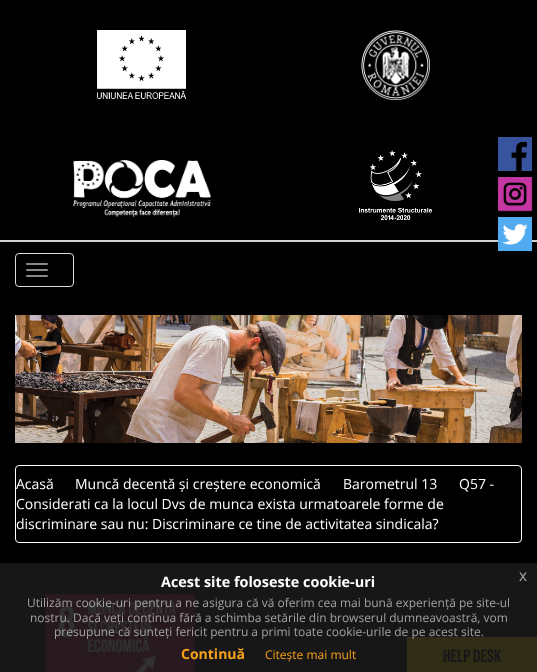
<?xml version="1.0" encoding="UTF-8"?>
<svg xmlns="http://www.w3.org/2000/svg" xmlns:xlink="http://www.w3.org/1999/xlink" width="537" height="672">
  <rect width="100%" height="100%" fill="#000000" />
  <rect y="563" width="537" height="109" fill="#171717" />
  <image x="97" y="30" width="89" height="69" xlink:href="image1.png" />
  <image x="361" y="30" width="69" height="70" xlink:href="image2.png" />
  <image x="73" y="160" width="138" height="57" xlink:href="image3.png" />
  <image x="359" y="150" width="73" height="70" xlink:href="image4.png" />
  <rect y="240" width="537" height="2" fill="#d1d1d1" />
  <image x="498" y="137" width="34" height="34" xlink:href="image5.png" />
  <image x="498" y="177" width="35" height="35" xlink:href="image6.png" />
  <image x="498" y="217" width="34" height="34" xlink:href="image7.png" />
  <rect x="15.5" y="253.5" width="58" height="33" rx="3.5" fill="none" stroke="#dddddd" />
  <rect x="26" y="263" width="22" height="2" rx="1" fill="#888888" />
  <rect x="26" y="269" width="22" height="2" rx="1" fill="#888888" />
  <rect x="26" y="275" width="22" height="2" rx="1" fill="#888888" />
  <image x="15" y="315" width="507" height="128" xlink:href="image8.png" />
  <rect x="15.5" y="465.5" width="506" height="77" rx="3.5" fill="none" stroke="#ffffff" />
  <image x="45" y="594" width="150" height="78" xlink:href="image9.png" />
  <rect x="407" y="637" width="130" height="35" fill="#302d17" />
  <text x="16" y="489" style="font-family: Open Sans; font-size: 14px; fill: #ffffff">Acasă</text>
  <text x="459" y="489" style="font-family: Open Sans; font-size: 14px; fill: #ffffff">Q57 -</text>
  <text x="16" y="509" style="font-family: Open Sans; font-size: 14px; fill: #ffffff">Considerati ca la locul Dvs de munca exista urmatoarele forme de</text>
  <text x="16" y="529" style="font-family: Open Sans; font-size: 14px; fill: #ffffff">discriminare sau nu: Discriminare ce tine de activitatea sindicala?</text>
  <text x="75" y="489" style="font-family: Open Sans; font-size: 14px; fill: #ffffff">Muncă decentă și creștere economică</text>
  <text x="343" y="489" style="font-family: Open Sans; font-size: 14px; fill: #ffffff">Barometrul 13</text>
  <text x="161" y="587" style="font-family: Open Sans; font-size: 14.4px; font-weight: bold; fill: #ffffff">Acest site foloseste cookie-uri</text>
  <text x="519" y="581" style="font-family: Liberation Sans; font-size: 16px; fill: #a2a2a2">x</text>
  <text x="27" y="607" style="font-family: Open Sans; font-size: 12px; fill: #a2a2a2">Utilizăm cookie-uri pentru a ne asigura că vă oferim cea mai bună experiență pe site-ul</text>
  <text x="30" y="622" style="font-family: Open Sans; font-size: 12px; fill: #a2a2a2">nostru. Dacă veți continua fără a schimba setările din browserul dumneavoastră, vom</text>
  <text x="54" y="636" style="font-family: Open Sans; font-size: 12px; fill: #a2a2a2">presupune că sunteți fericit pentru a primi toate cookie-urile de pe acest site.</text>
  <text x="181" y="659" style="font-family: Open Sans; font-size: 14px; font-weight: bold; fill: #f6a21d">Continuă</text>
  <text x="265" y="659" style="font-family: Open Sans; font-size: 12px; fill: #f6a21d">Citește mai mult</text>
  <text x="443" y="662" style="font-family: Bebas Neue; font-size: 18px; fill: #171717">Help Desk</text>
</svg>
